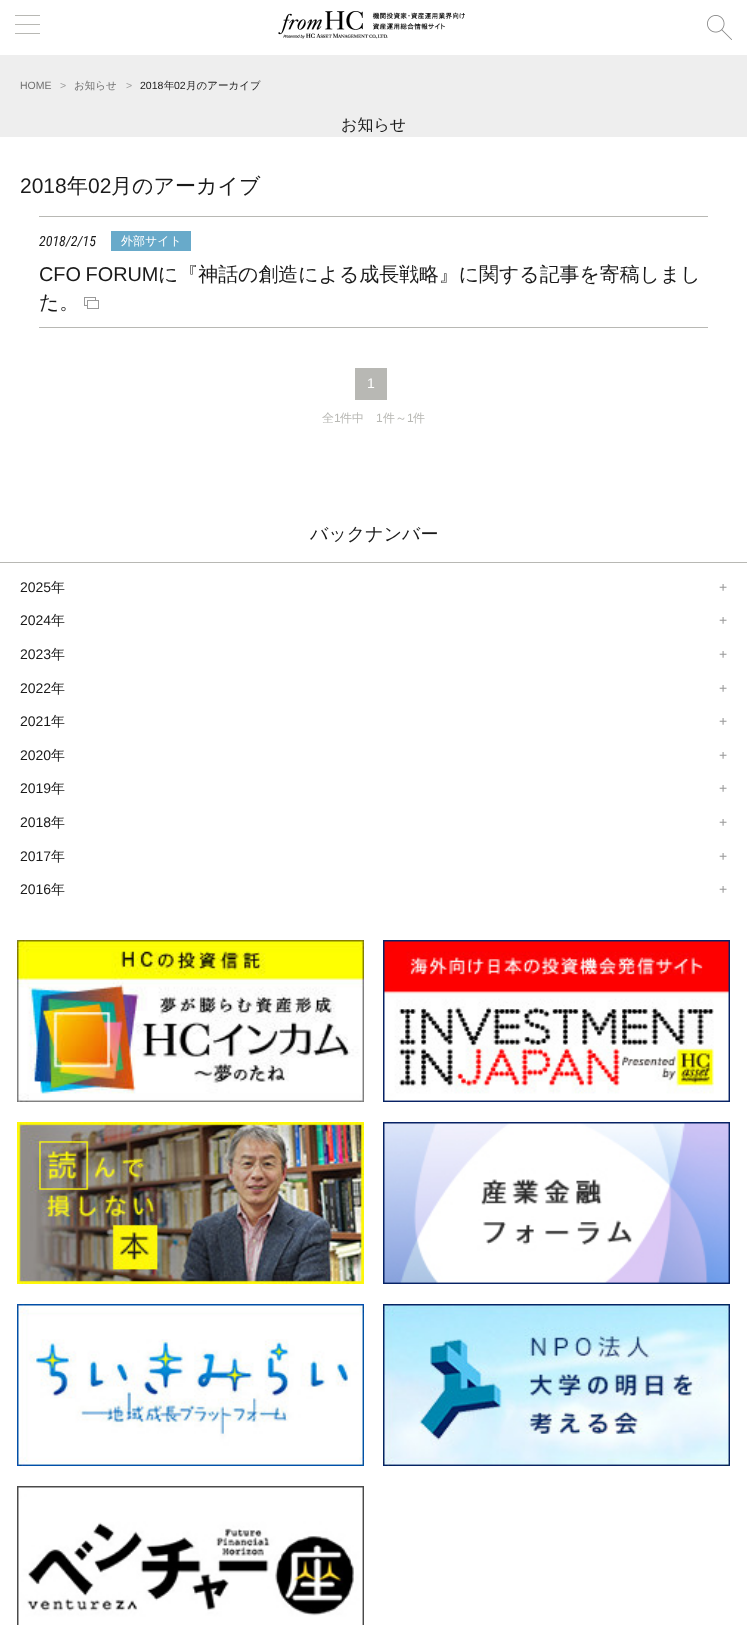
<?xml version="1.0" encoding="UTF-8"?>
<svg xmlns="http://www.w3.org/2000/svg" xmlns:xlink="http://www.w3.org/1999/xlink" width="747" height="1625">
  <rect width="100%" height="100%" fill="#ffffff" />
  <rect x="15" y="15" width="25" height="1" fill="#b8b8b4" />
  <rect x="15" y="24" width="25" height="1" fill="#b8b8b4" />
  <rect x="15" y="33" width="25" height="1" fill="#b8b8b4" />
  <image x="278" y="11" width="187" height="28" xlink:href="image1.png" />
  <image x="707" y="15" width="25" height="25" xlink:href="image2.png" />
  <rect y="55" width="747" height="82" fill="#eeeeee" />
  <rect x="39" y="216" width="669" height="1" fill="#b8b8b4" />
  <rect x="39" y="327" width="669" height="1" fill="#b8b8b4" />
  <rect x="111" y="231" width="80" height="20" fill="#68aaca" />
  <image x="84" y="297" width="15" height="12" xlink:href="image3.png" />
  <rect x="355" y="368" width="32" height="32" fill="#b8b8b4" />
  <rect y="562" width="747" height="1" fill="#b8b8b4" />
  <image x="17" y="940" width="347" height="162" xlink:href="image4.png" />
  <image x="383" y="940" width="347" height="162" xlink:href="image5.png" />
  <image x="17" y="1122" width="347" height="162" xlink:href="image6.png" />
  <image x="383" y="1122" width="347" height="162" xlink:href="image7.png" />
  <image x="17" y="1304" width="347" height="162" xlink:href="image8.png" />
  <image x="383" y="1304" width="347" height="162" xlink:href="image9.png" />
  <image x="17" y="1486" width="347" height="139" xlink:href="image10.png" />
  <text x="20" y="89" style="font-family: Liberation Sans; font-size: 10.5px; fill: #707070">HOME</text>
  <text x="60" y="89" style="font-family: Liberation Sans; font-size: 10.5px; fill: #999999">&gt;</text>
  <text x="74" y="89" style="font-family: WenQuanYi Zen Hei; font-size: 10.5px; font-weight: 500; fill: #707070">お知らせ</text>
  <text x="126" y="89" style="font-family: Liberation Sans; font-size: 10.5px; fill: #999999">&gt;</text>
  <text x="140" y="89" style="font-family: Liberation Sans; font-size: 10.5px; fill: #1a1a1a">2018</text>
  <text x="164" y="89" style="font-family: WenQuanYi Zen Hei; font-size: 10.5px; font-weight: 500; fill: #1a1a1a">年</text>
  <text x="174" y="89" style="font-family: Liberation Sans; font-size: 10.5px; fill: #1a1a1a">02</text>
  <text x="186" y="89" style="font-family: WenQuanYi Zen Hei; font-size: 10.5px; font-weight: 500; fill: #1a1a1a">月のアーカイブ</text>
  <text x="341" y="130" style="font-family: WenQuanYi Zen Hei; font-size: 16px; font-weight: 500; fill: #1a1a1a">お知らせ</text>
  <text x="20" y="193" style="font-family: Liberation Sans; font-size: 21px; fill: #1a1a1a">2018</text>
  <text x="67" y="193" style="font-family: WenQuanYi Zen Hei; font-size: 21px; font-weight: 500; fill: #1a1a1a">年</text>
  <text x="88" y="193" style="font-family: Liberation Sans; font-size: 21px; fill: #1a1a1a">02</text>
  <text x="111" y="193" style="font-family: WenQuanYi Zen Hei; font-size: 21px; font-weight: 500; fill: #1a1a1a">月のアーカイブ</text>
  <text x="39" y="246" style="font-family: Roboto Condensed; font-size: 14px; font-style: italic; fill: #1a1a1a">2018/2/15</text>
  <text x="121" y="245" style="font-family: WenQuanYi Zen Hei; font-size: 12px; font-weight: 500; fill: #ffffff">外部サイト</text>
  <text x="39" y="281" word-spacing="-1" style="font-family: Liberation Sans; font-size: 19.9px; fill: #1a1a1a">CFO FORUM</text>
  <text x="158" y="281" style="font-family: WenQuanYi Zen Hei; font-size: 19.9px; font-weight: 500; fill: #1a1a1a">に『神話の創造による成長戦略』に関する記事を寄稿しまし</text>
  <text x="39" y="309" style="font-family: WenQuanYi Zen Hei; font-size: 19.9px; font-weight: 500; fill: #1a1a1a">た。</text>
  <text x="367" y="388" style="font-family: Liberation Sans; font-size: 14px; fill: #ffffff">1</text>
  <text x="322" y="422" style="font-family: WenQuanYi Zen Hei; font-size: 12px; font-weight: 500; fill: #b8b8b4">全</text>
  <text x="334" y="422" style="font-family: Liberation Sans; font-size: 12px; fill: #b8b8b4">1</text>
  <text x="340" y="422" style="font-family: WenQuanYi Zen Hei; font-size: 12px; font-weight: 500; fill: #b8b8b4">件中</text>
  <text x="376" y="422" style="font-family: Liberation Sans; font-size: 12px; fill: #b8b8b4">1</text>
  <text x="383" y="422" style="font-family: WenQuanYi Zen Hei; font-size: 12px; font-weight: 500; fill: #b8b8b4">件～</text>
  <text x="407" y="422" style="font-family: Liberation Sans; font-size: 12px; fill: #b8b8b4">1</text>
  <text x="413" y="422" style="font-family: WenQuanYi Zen Hei; font-size: 12px; font-weight: 500; fill: #b8b8b4">件</text>
  <text x="310" y="540" style="font-family: WenQuanYi Zen Hei; font-size: 18px; font-weight: 500; fill: #1a1a1a">バックナンバー</text>
  <text x="20" y="592" style="font-family: Liberation Sans; font-size: 14px; fill: #1a1a1a">2025</text>
  <text x="51" y="592" style="font-family: WenQuanYi Zen Hei; font-size: 14px; font-weight: 500; fill: #1a1a1a">年</text>
  <text x="719" y="592" style="font-family: Liberation Sans; font-size: 14px; fill: #999999">+</text>
  <text x="20" y="625" style="font-family: Liberation Sans; font-size: 14px; fill: #1a1a1a">2024</text>
  <text x="51" y="625" style="font-family: WenQuanYi Zen Hei; font-size: 14px; font-weight: 500; fill: #1a1a1a">年</text>
  <text x="719" y="625" style="font-family: Liberation Sans; font-size: 14px; fill: #999999">+</text>
  <text x="20" y="659" style="font-family: Liberation Sans; font-size: 14px; fill: #1a1a1a">2023</text>
  <text x="51" y="659" style="font-family: WenQuanYi Zen Hei; font-size: 14px; font-weight: 500; fill: #1a1a1a">年</text>
  <text x="719" y="659" style="font-family: Liberation Sans; font-size: 14px; fill: #999999">+</text>
  <text x="20" y="693" style="font-family: Liberation Sans; font-size: 14px; fill: #1a1a1a">2022</text>
  <text x="51" y="693" style="font-family: WenQuanYi Zen Hei; font-size: 14px; font-weight: 500; fill: #1a1a1a">年</text>
  <text x="719" y="693" style="font-family: Liberation Sans; font-size: 14px; fill: #999999">+</text>
  <text x="20" y="726" style="font-family: Liberation Sans; font-size: 14px; fill: #1a1a1a">2021</text>
  <text x="51" y="726" style="font-family: WenQuanYi Zen Hei; font-size: 14px; font-weight: 500; fill: #1a1a1a">年</text>
  <text x="719" y="726" style="font-family: Liberation Sans; font-size: 14px; fill: #999999">+</text>
  <text x="20" y="760" style="font-family: Liberation Sans; font-size: 14px; fill: #1a1a1a">2020</text>
  <text x="51" y="760" style="font-family: WenQuanYi Zen Hei; font-size: 14px; font-weight: 500; fill: #1a1a1a">年</text>
  <text x="719" y="760" style="font-family: Liberation Sans; font-size: 14px; fill: #999999">+</text>
  <text x="20" y="793" style="font-family: Liberation Sans; font-size: 14px; fill: #1a1a1a">2019</text>
  <text x="51" y="793" style="font-family: WenQuanYi Zen Hei; font-size: 14px; font-weight: 500; fill: #1a1a1a">年</text>
  <text x="719" y="793" style="font-family: Liberation Sans; font-size: 14px; fill: #999999">+</text>
  <text x="20" y="827" style="font-family: Liberation Sans; font-size: 14px; fill: #1a1a1a">2018</text>
  <text x="51" y="827" style="font-family: WenQuanYi Zen Hei; font-size: 14px; font-weight: 500; fill: #1a1a1a">年</text>
  <text x="719" y="827" style="font-family: Liberation Sans; font-size: 14px; fill: #999999">+</text>
  <text x="20" y="861" style="font-family: Liberation Sans; font-size: 14px; fill: #1a1a1a">2017</text>
  <text x="51" y="861" style="font-family: WenQuanYi Zen Hei; font-size: 14px; font-weight: 500; fill: #1a1a1a">年</text>
  <text x="719" y="861" style="font-family: Liberation Sans; font-size: 14px; fill: #999999">+</text>
  <text x="20" y="894" style="font-family: Liberation Sans; font-size: 14px; fill: #1a1a1a">2016</text>
  <text x="51" y="894" style="font-family: WenQuanYi Zen Hei; font-size: 14px; font-weight: 500; fill: #1a1a1a">年</text>
  <text x="719" y="894" style="font-family: Liberation Sans; font-size: 14px; fill: #999999">+</text>
</svg>
